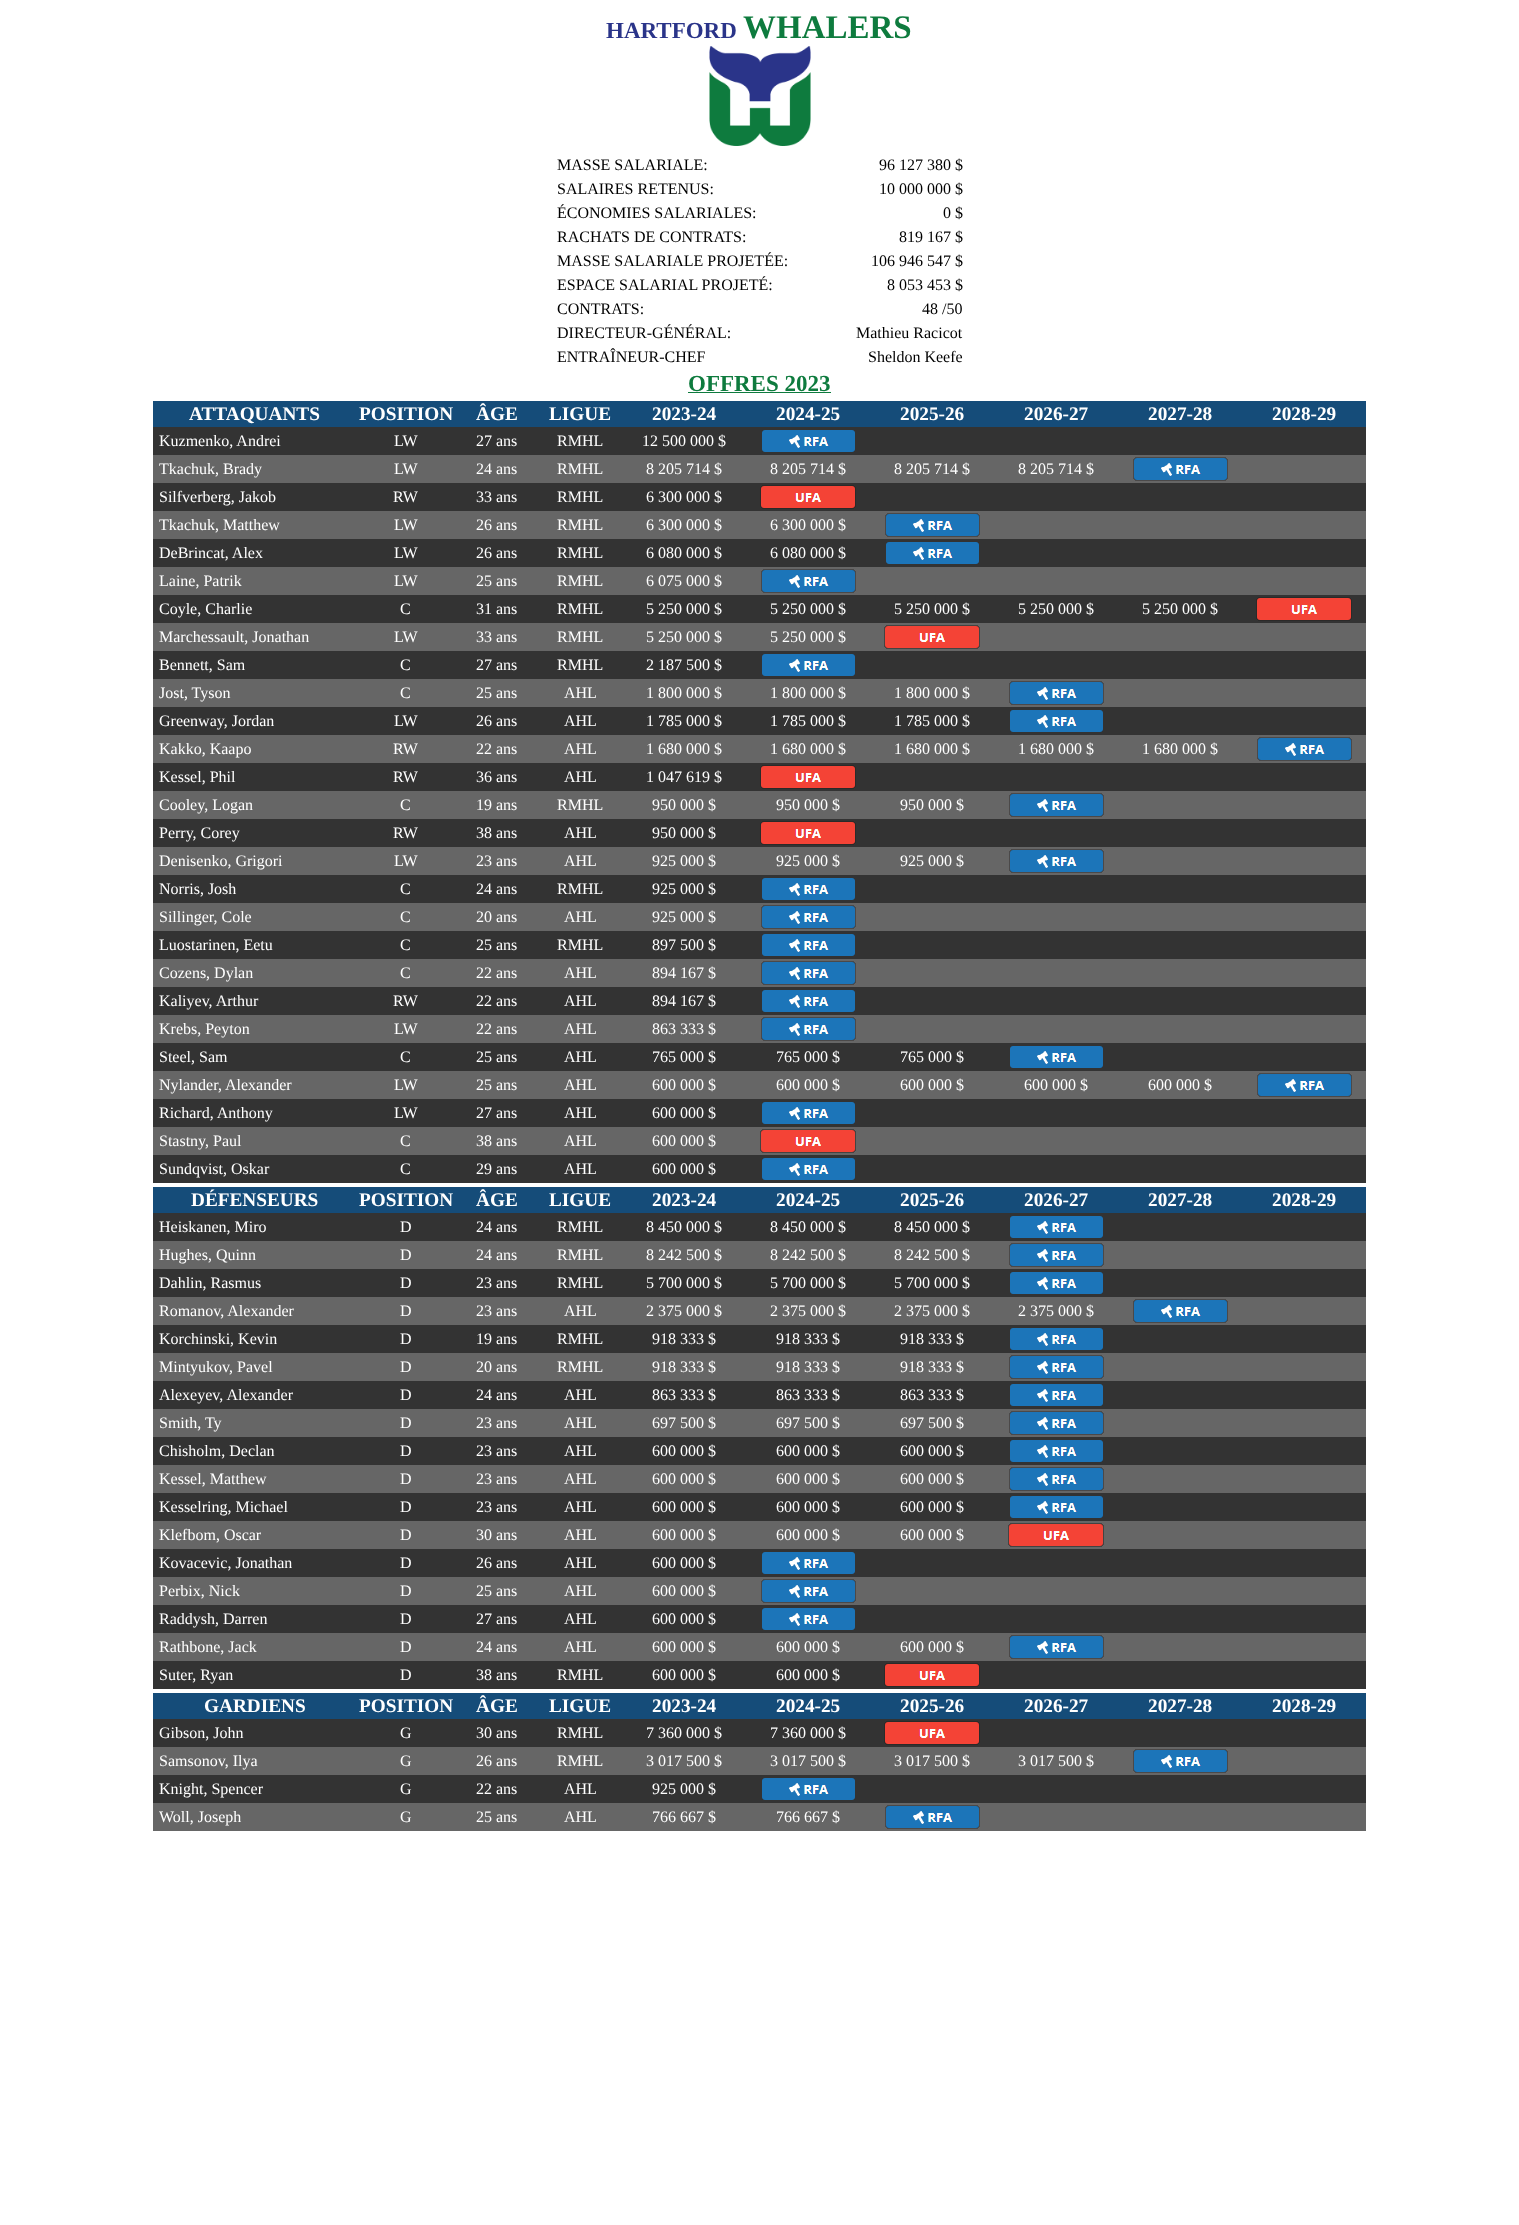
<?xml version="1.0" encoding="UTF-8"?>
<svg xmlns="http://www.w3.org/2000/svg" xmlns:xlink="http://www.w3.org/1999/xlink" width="1519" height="2225">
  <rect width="100%" height="100%" fill="#ffffff" />
  <image x="709" y="46" width="102" height="100" xlink:href="image1.png" />
  <rect x="688" y="392" width="143" height="1" fill="#0e7b3e" />
  <rect x="153" y="401" width="1213" height="26" fill="#154c79" />
  <rect x="153" y="427" width="1213" height="28" fill="#333333" />
  <image x="762" y="430" width="93" height="22" xlink:href="image2.png" />
  <rect x="153" y="455" width="1213" height="28" fill="#666666" />
  <image x="1133" y="457" width="95" height="24" xlink:href="image3.png" />
  <rect x="153" y="483" width="1213" height="28" fill="#333333" />
  <image x="760" y="485" width="96" height="24" xlink:href="image4.png" />
  <rect x="153" y="511" width="1213" height="28" fill="#666666" />
  <image x="885" y="513" width="95" height="24" xlink:href="image3.png" />
  <rect x="153" y="539" width="1213" height="28" fill="#333333" />
  <image x="886" y="542" width="93" height="22" xlink:href="image2.png" />
  <rect x="153" y="567" width="1213" height="28" fill="#666666" />
  <image x="761" y="569" width="95" height="24" xlink:href="image3.png" />
  <rect x="153" y="595" width="1213" height="28" fill="#333333" />
  <image x="1256" y="597" width="96" height="24" xlink:href="image4.png" />
  <rect x="153" y="623" width="1213" height="28" fill="#666666" />
  <image x="884" y="625" width="96" height="24" xlink:href="image5.png" />
  <rect x="153" y="651" width="1213" height="28" fill="#333333" />
  <image x="762" y="654" width="93" height="22" xlink:href="image2.png" />
  <rect x="153" y="679" width="1213" height="28" fill="#666666" />
  <image x="1009" y="681" width="95" height="24" xlink:href="image3.png" />
  <rect x="153" y="707" width="1213" height="28" fill="#333333" />
  <image x="1010" y="710" width="93" height="22" xlink:href="image2.png" />
  <rect x="153" y="735" width="1213" height="28" fill="#666666" />
  <image x="1257" y="737" width="95" height="24" xlink:href="image3.png" />
  <rect x="153" y="763" width="1213" height="28" fill="#333333" />
  <image x="760" y="765" width="96" height="24" xlink:href="image4.png" />
  <rect x="153" y="791" width="1213" height="28" fill="#666666" />
  <image x="1009" y="793" width="95" height="24" xlink:href="image3.png" />
  <rect x="153" y="819" width="1213" height="28" fill="#333333" />
  <image x="760" y="821" width="96" height="24" xlink:href="image4.png" />
  <rect x="153" y="847" width="1213" height="28" fill="#666666" />
  <image x="1009" y="849" width="95" height="24" xlink:href="image3.png" />
  <rect x="153" y="875" width="1213" height="28" fill="#333333" />
  <image x="762" y="878" width="93" height="22" xlink:href="image2.png" />
  <rect x="153" y="903" width="1213" height="28" fill="#666666" />
  <image x="761" y="905" width="95" height="24" xlink:href="image3.png" />
  <rect x="153" y="931" width="1213" height="28" fill="#333333" />
  <image x="762" y="934" width="93" height="22" xlink:href="image2.png" />
  <rect x="153" y="959" width="1213" height="28" fill="#666666" />
  <image x="761" y="961" width="95" height="24" xlink:href="image3.png" />
  <rect x="153" y="987" width="1213" height="28" fill="#333333" />
  <image x="762" y="990" width="93" height="22" xlink:href="image2.png" />
  <rect x="153" y="1015" width="1213" height="28" fill="#666666" />
  <image x="761" y="1017" width="95" height="24" xlink:href="image3.png" />
  <rect x="153" y="1043" width="1213" height="28" fill="#333333" />
  <image x="1010" y="1046" width="93" height="22" xlink:href="image2.png" />
  <rect x="153" y="1071" width="1213" height="28" fill="#666666" />
  <image x="1257" y="1073" width="95" height="24" xlink:href="image3.png" />
  <rect x="153" y="1099" width="1213" height="28" fill="#333333" />
  <image x="762" y="1102" width="93" height="22" xlink:href="image2.png" />
  <rect x="153" y="1127" width="1213" height="28" fill="#666666" />
  <image x="760" y="1129" width="96" height="24" xlink:href="image5.png" />
  <rect x="153" y="1155" width="1213" height="28" fill="#333333" />
  <image x="762" y="1158" width="93" height="22" xlink:href="image2.png" />
  <rect x="153" y="1187" width="1213" height="26" fill="#154c79" />
  <rect x="153" y="1213" width="1213" height="28" fill="#333333" />
  <image x="1010" y="1216" width="93" height="22" xlink:href="image2.png" />
  <rect x="153" y="1241" width="1213" height="28" fill="#666666" />
  <image x="1009" y="1243" width="95" height="24" xlink:href="image3.png" />
  <rect x="153" y="1269" width="1213" height="28" fill="#333333" />
  <image x="1010" y="1272" width="93" height="22" xlink:href="image2.png" />
  <rect x="153" y="1297" width="1213" height="28" fill="#666666" />
  <image x="1133" y="1299" width="95" height="24" xlink:href="image3.png" />
  <rect x="153" y="1325" width="1213" height="28" fill="#333333" />
  <image x="1010" y="1328" width="93" height="22" xlink:href="image2.png" />
  <rect x="153" y="1353" width="1213" height="28" fill="#666666" />
  <image x="1009" y="1355" width="95" height="24" xlink:href="image3.png" />
  <rect x="153" y="1381" width="1213" height="28" fill="#333333" />
  <image x="1010" y="1384" width="93" height="22" xlink:href="image2.png" />
  <rect x="153" y="1409" width="1213" height="28" fill="#666666" />
  <image x="1009" y="1411" width="95" height="24" xlink:href="image3.png" />
  <rect x="153" y="1437" width="1213" height="28" fill="#333333" />
  <image x="1010" y="1440" width="93" height="22" xlink:href="image2.png" />
  <rect x="153" y="1465" width="1213" height="28" fill="#666666" />
  <image x="1009" y="1467" width="95" height="24" xlink:href="image3.png" />
  <rect x="153" y="1493" width="1213" height="28" fill="#333333" />
  <image x="1010" y="1496" width="93" height="22" xlink:href="image2.png" />
  <rect x="153" y="1521" width="1213" height="28" fill="#666666" />
  <image x="1008" y="1523" width="96" height="24" xlink:href="image5.png" />
  <rect x="153" y="1549" width="1213" height="28" fill="#333333" />
  <image x="762" y="1552" width="93" height="22" xlink:href="image2.png" />
  <rect x="153" y="1577" width="1213" height="28" fill="#666666" />
  <image x="761" y="1579" width="95" height="24" xlink:href="image3.png" />
  <rect x="153" y="1605" width="1213" height="28" fill="#333333" />
  <image x="762" y="1608" width="93" height="22" xlink:href="image2.png" />
  <rect x="153" y="1633" width="1213" height="28" fill="#666666" />
  <image x="1009" y="1635" width="95" height="24" xlink:href="image3.png" />
  <rect x="153" y="1661" width="1213" height="28" fill="#333333" />
  <image x="884" y="1663" width="96" height="24" xlink:href="image4.png" />
  <rect x="153" y="1693" width="1213" height="26" fill="#154c79" />
  <rect x="153" y="1719" width="1213" height="28" fill="#333333" />
  <image x="884" y="1721" width="96" height="24" xlink:href="image4.png" />
  <rect x="153" y="1747" width="1213" height="28" fill="#666666" />
  <image x="1133" y="1749" width="95" height="24" xlink:href="image3.png" />
  <rect x="153" y="1775" width="1213" height="28" fill="#333333" />
  <image x="762" y="1778" width="93" height="22" xlink:href="image2.png" />
  <rect x="153" y="1803" width="1213" height="28" fill="#666666" />
  <image x="885" y="1805" width="95" height="24" xlink:href="image3.png" />
  <text x="606" y="38" style="font-family: Liberation Serif; font-size: 23px; font-weight: bold; fill: #2a3489">HARTFORD</text>
  <text x="743" y="38" style="font-family: Liberation Serif; font-size: 33px; font-weight: bold; fill: #0e7b3e">WHALERS</text>
  <text x="557" y="170" style="font-family: Liberation Serif; font-size: 16px; fill: #000000">MASSE SALARIALE:</text>
  <text x="879" y="170" style="font-family: Liberation Serif; font-size: 16px; fill: #000000">96 127 380 $</text>
  <text x="557" y="194" style="font-family: Liberation Serif; font-size: 16px; fill: #000000">SALAIRES RETENUS:</text>
  <text x="879" y="194" style="font-family: Liberation Serif; font-size: 16px; fill: #000000">10 000 000 $</text>
  <text x="557" y="218" style="font-family: Liberation Serif; font-size: 16px; fill: #000000">ÉCONOMIES SALARIALES:</text>
  <text x="943" y="218" style="font-family: Liberation Serif; font-size: 16px; fill: #000000">0 $</text>
  <text x="557" y="242" style="font-family: Liberation Serif; font-size: 16px; fill: #000000">RACHATS DE CONTRATS:</text>
  <text x="899" y="242" style="font-family: Liberation Serif; font-size: 16px; fill: #000000">819 167 $</text>
  <text x="557" y="266" style="font-family: Liberation Serif; font-size: 16px; fill: #000000">MASSE SALARIALE PROJETÉE:</text>
  <text x="871" y="266" style="font-family: Liberation Serif; font-size: 16px; fill: #000000">106 946 547 $</text>
  <text x="557" y="290" style="font-family: Liberation Serif; font-size: 16px; fill: #000000">ESPACE SALARIAL PROJETÉ:</text>
  <text x="887" y="290" style="font-family: Liberation Serif; font-size: 16px; fill: #000000">8 053 453 $</text>
  <text x="557" y="314" style="font-family: Liberation Serif; font-size: 16px; fill: #000000">CONTRATS:</text>
  <text x="922" y="314" style="font-family: Liberation Serif; font-size: 16px; fill: #000000">48 /50</text>
  <text x="557" y="338" style="font-family: Liberation Serif; font-size: 16px; fill: #000000">DIRECTEUR-GÉNÉRAL:</text>
  <text x="856" y="338" style="font-family: Liberation Serif; font-size: 16px; fill: #000000">Mathieu Racicot</text>
  <text x="557" y="362" style="font-family: Liberation Serif; font-size: 16px; fill: #000000">ENTRAÎNEUR-CHEF</text>
  <text x="868" y="362" style="font-family: Liberation Serif; font-size: 16px; fill: #000000">Sheldon Keefe</text>
  <text x="688" y="391" style="font-family: Liberation Serif; font-size: 23px; font-weight: bold; fill: #0e7b3e">OFFRES 2023</text>
  <text x="189" y="420" style="font-family: Liberation Serif; font-size: 19.25px; font-weight: bold; fill: #ffffff">ATTAQUANTS</text>
  <text x="359" y="420" style="font-family: Liberation Serif; font-size: 19.25px; font-weight: bold; fill: #ffffff">POSITION</text>
  <text x="476" y="420" style="font-family: Liberation Serif; font-size: 19.25px; font-weight: bold; fill: #ffffff">ÂGE</text>
  <text x="549" y="420" style="font-family: Liberation Serif; font-size: 19.25px; font-weight: bold; fill: #ffffff">LIGUE</text>
  <text x="652" y="420" style="font-family: Liberation Serif; font-size: 19.25px; font-weight: bold; fill: #ffffff">2023-24</text>
  <text x="776" y="420" style="font-family: Liberation Serif; font-size: 19.25px; font-weight: bold; fill: #ffffff">2024-25</text>
  <text x="900" y="420" style="font-family: Liberation Serif; font-size: 19.25px; font-weight: bold; fill: #ffffff">2025-26</text>
  <text x="1024" y="420" style="font-family: Liberation Serif; font-size: 19.25px; font-weight: bold; fill: #ffffff">2026-27</text>
  <text x="1148" y="420" style="font-family: Liberation Serif; font-size: 19.25px; font-weight: bold; fill: #ffffff">2027-28</text>
  <text x="1272" y="420" style="font-family: Liberation Serif; font-size: 19.25px; font-weight: bold; fill: #ffffff">2028-29</text>
  <text x="159" y="446" style="font-family: Liberation Serif; font-size: 16px; fill: #ffffff">Kuzmenko, Andrei</text>
  <text x="394" y="446" style="font-family: Liberation Serif; font-size: 16px; fill: #ffffff">LW</text>
  <text x="476" y="446" style="font-family: Liberation Serif; font-size: 16px; fill: #ffffff">27 ans</text>
  <text x="557" y="446" style="font-family: Liberation Serif; font-size: 16px; fill: #ffffff">RMHL</text>
  <text x="642" y="446" style="font-family: Liberation Serif; font-size: 16px; fill: #ffffff">12 500 000 $</text>
  <text x="159" y="474" style="font-family: Liberation Serif; font-size: 16px; fill: #ffffff">Tkachuk, Brady</text>
  <text x="394" y="474" style="font-family: Liberation Serif; font-size: 16px; fill: #ffffff">LW</text>
  <text x="476" y="474" style="font-family: Liberation Serif; font-size: 16px; fill: #ffffff">24 ans</text>
  <text x="557" y="474" style="font-family: Liberation Serif; font-size: 16px; fill: #ffffff">RMHL</text>
  <text x="646" y="474" style="font-family: Liberation Serif; font-size: 16px; fill: #ffffff">8 205 714 $</text>
  <text x="770" y="474" style="font-family: Liberation Serif; font-size: 16px; fill: #ffffff">8 205 714 $</text>
  <text x="894" y="474" style="font-family: Liberation Serif; font-size: 16px; fill: #ffffff">8 205 714 $</text>
  <text x="1018" y="474" style="font-family: Liberation Serif; font-size: 16px; fill: #ffffff">8 205 714 $</text>
  <text x="159" y="502" style="font-family: Liberation Serif; font-size: 16px; fill: #ffffff">Silfverberg, Jakob</text>
  <text x="393" y="502" style="font-family: Liberation Serif; font-size: 16px; fill: #ffffff">RW</text>
  <text x="476" y="502" style="font-family: Liberation Serif; font-size: 16px; fill: #ffffff">33 ans</text>
  <text x="557" y="502" style="font-family: Liberation Serif; font-size: 16px; fill: #ffffff">RMHL</text>
  <text x="646" y="502" style="font-family: Liberation Serif; font-size: 16px; fill: #ffffff">6 300 000 $</text>
  <text x="159" y="530" style="font-family: Liberation Serif; font-size: 16px; fill: #ffffff">Tkachuk, Matthew</text>
  <text x="394" y="530" style="font-family: Liberation Serif; font-size: 16px; fill: #ffffff">LW</text>
  <text x="476" y="530" style="font-family: Liberation Serif; font-size: 16px; fill: #ffffff">26 ans</text>
  <text x="557" y="530" style="font-family: Liberation Serif; font-size: 16px; fill: #ffffff">RMHL</text>
  <text x="646" y="530" style="font-family: Liberation Serif; font-size: 16px; fill: #ffffff">6 300 000 $</text>
  <text x="770" y="530" style="font-family: Liberation Serif; font-size: 16px; fill: #ffffff">6 300 000 $</text>
  <text x="159" y="558" style="font-family: Liberation Serif; font-size: 16px; fill: #ffffff">DeBrincat, Alex</text>
  <text x="394" y="558" style="font-family: Liberation Serif; font-size: 16px; fill: #ffffff">LW</text>
  <text x="476" y="558" style="font-family: Liberation Serif; font-size: 16px; fill: #ffffff">26 ans</text>
  <text x="557" y="558" style="font-family: Liberation Serif; font-size: 16px; fill: #ffffff">RMHL</text>
  <text x="646" y="558" style="font-family: Liberation Serif; font-size: 16px; fill: #ffffff">6 080 000 $</text>
  <text x="770" y="558" style="font-family: Liberation Serif; font-size: 16px; fill: #ffffff">6 080 000 $</text>
  <text x="159" y="586" style="font-family: Liberation Serif; font-size: 16px; fill: #ffffff">Laine, Patrik</text>
  <text x="394" y="586" style="font-family: Liberation Serif; font-size: 16px; fill: #ffffff">LW</text>
  <text x="476" y="586" style="font-family: Liberation Serif; font-size: 16px; fill: #ffffff">25 ans</text>
  <text x="557" y="586" style="font-family: Liberation Serif; font-size: 16px; fill: #ffffff">RMHL</text>
  <text x="646" y="586" style="font-family: Liberation Serif; font-size: 16px; fill: #ffffff">6 075 000 $</text>
  <text x="159" y="614" style="font-family: Liberation Serif; font-size: 16px; fill: #ffffff">Coyle, Charlie</text>
  <text x="400" y="614" style="font-family: Liberation Serif; font-size: 16px; fill: #ffffff">C</text>
  <text x="476" y="614" style="font-family: Liberation Serif; font-size: 16px; fill: #ffffff">31 ans</text>
  <text x="557" y="614" style="font-family: Liberation Serif; font-size: 16px; fill: #ffffff">RMHL</text>
  <text x="646" y="614" style="font-family: Liberation Serif; font-size: 16px; fill: #ffffff">5 250 000 $</text>
  <text x="770" y="614" style="font-family: Liberation Serif; font-size: 16px; fill: #ffffff">5 250 000 $</text>
  <text x="894" y="614" style="font-family: Liberation Serif; font-size: 16px; fill: #ffffff">5 250 000 $</text>
  <text x="1018" y="614" style="font-family: Liberation Serif; font-size: 16px; fill: #ffffff">5 250 000 $</text>
  <text x="1142" y="614" style="font-family: Liberation Serif; font-size: 16px; fill: #ffffff">5 250 000 $</text>
  <text x="159" y="642" style="font-family: Liberation Serif; font-size: 16px; fill: #ffffff">Marchessault, Jonathan</text>
  <text x="394" y="642" style="font-family: Liberation Serif; font-size: 16px; fill: #ffffff">LW</text>
  <text x="476" y="642" style="font-family: Liberation Serif; font-size: 16px; fill: #ffffff">33 ans</text>
  <text x="557" y="642" style="font-family: Liberation Serif; font-size: 16px; fill: #ffffff">RMHL</text>
  <text x="646" y="642" style="font-family: Liberation Serif; font-size: 16px; fill: #ffffff">5 250 000 $</text>
  <text x="770" y="642" style="font-family: Liberation Serif; font-size: 16px; fill: #ffffff">5 250 000 $</text>
  <text x="159" y="670" style="font-family: Liberation Serif; font-size: 16px; fill: #ffffff">Bennett, Sam</text>
  <text x="400" y="670" style="font-family: Liberation Serif; font-size: 16px; fill: #ffffff">C</text>
  <text x="476" y="670" style="font-family: Liberation Serif; font-size: 16px; fill: #ffffff">27 ans</text>
  <text x="557" y="670" style="font-family: Liberation Serif; font-size: 16px; fill: #ffffff">RMHL</text>
  <text x="646" y="670" style="font-family: Liberation Serif; font-size: 16px; fill: #ffffff">2 187 500 $</text>
  <text x="159" y="698" style="font-family: Liberation Serif; font-size: 16px; fill: #ffffff">Jost, Tyson</text>
  <text x="400" y="698" style="font-family: Liberation Serif; font-size: 16px; fill: #ffffff">C</text>
  <text x="476" y="698" style="font-family: Liberation Serif; font-size: 16px; fill: #ffffff">25 ans</text>
  <text x="564" y="698" style="font-family: Liberation Serif; font-size: 16px; fill: #ffffff">AHL</text>
  <text x="646" y="698" style="font-family: Liberation Serif; font-size: 16px; fill: #ffffff">1 800 000 $</text>
  <text x="770" y="698" style="font-family: Liberation Serif; font-size: 16px; fill: #ffffff">1 800 000 $</text>
  <text x="894" y="698" style="font-family: Liberation Serif; font-size: 16px; fill: #ffffff">1 800 000 $</text>
  <text x="159" y="726" style="font-family: Liberation Serif; font-size: 16px; fill: #ffffff">Greenway, Jordan</text>
  <text x="394" y="726" style="font-family: Liberation Serif; font-size: 16px; fill: #ffffff">LW</text>
  <text x="476" y="726" style="font-family: Liberation Serif; font-size: 16px; fill: #ffffff">26 ans</text>
  <text x="564" y="726" style="font-family: Liberation Serif; font-size: 16px; fill: #ffffff">AHL</text>
  <text x="646" y="726" style="font-family: Liberation Serif; font-size: 16px; fill: #ffffff">1 785 000 $</text>
  <text x="770" y="726" style="font-family: Liberation Serif; font-size: 16px; fill: #ffffff">1 785 000 $</text>
  <text x="894" y="726" style="font-family: Liberation Serif; font-size: 16px; fill: #ffffff">1 785 000 $</text>
  <text x="159" y="754" style="font-family: Liberation Serif; font-size: 16px; fill: #ffffff">Kakko, Kaapo</text>
  <text x="393" y="754" style="font-family: Liberation Serif; font-size: 16px; fill: #ffffff">RW</text>
  <text x="476" y="754" style="font-family: Liberation Serif; font-size: 16px; fill: #ffffff">22 ans</text>
  <text x="564" y="754" style="font-family: Liberation Serif; font-size: 16px; fill: #ffffff">AHL</text>
  <text x="646" y="754" style="font-family: Liberation Serif; font-size: 16px; fill: #ffffff">1 680 000 $</text>
  <text x="770" y="754" style="font-family: Liberation Serif; font-size: 16px; fill: #ffffff">1 680 000 $</text>
  <text x="894" y="754" style="font-family: Liberation Serif; font-size: 16px; fill: #ffffff">1 680 000 $</text>
  <text x="1018" y="754" style="font-family: Liberation Serif; font-size: 16px; fill: #ffffff">1 680 000 $</text>
  <text x="1142" y="754" style="font-family: Liberation Serif; font-size: 16px; fill: #ffffff">1 680 000 $</text>
  <text x="159" y="782" style="font-family: Liberation Serif; font-size: 16px; fill: #ffffff">Kessel, Phil</text>
  <text x="393" y="782" style="font-family: Liberation Serif; font-size: 16px; fill: #ffffff">RW</text>
  <text x="476" y="782" style="font-family: Liberation Serif; font-size: 16px; fill: #ffffff">36 ans</text>
  <text x="564" y="782" style="font-family: Liberation Serif; font-size: 16px; fill: #ffffff">AHL</text>
  <text x="646" y="782" style="font-family: Liberation Serif; font-size: 16px; fill: #ffffff">1 047 619 $</text>
  <text x="159" y="810" style="font-family: Liberation Serif; font-size: 16px; fill: #ffffff">Cooley, Logan</text>
  <text x="400" y="810" style="font-family: Liberation Serif; font-size: 16px; fill: #ffffff">C</text>
  <text x="476" y="810" style="font-family: Liberation Serif; font-size: 16px; fill: #ffffff">19 ans</text>
  <text x="557" y="810" style="font-family: Liberation Serif; font-size: 16px; fill: #ffffff">RMHL</text>
  <text x="652" y="810" style="font-family: Liberation Serif; font-size: 16px; fill: #ffffff">950 000 $</text>
  <text x="776" y="810" style="font-family: Liberation Serif; font-size: 16px; fill: #ffffff">950 000 $</text>
  <text x="900" y="810" style="font-family: Liberation Serif; font-size: 16px; fill: #ffffff">950 000 $</text>
  <text x="159" y="838" style="font-family: Liberation Serif; font-size: 16px; fill: #ffffff">Perry, Corey</text>
  <text x="393" y="838" style="font-family: Liberation Serif; font-size: 16px; fill: #ffffff">RW</text>
  <text x="476" y="838" style="font-family: Liberation Serif; font-size: 16px; fill: #ffffff">38 ans</text>
  <text x="564" y="838" style="font-family: Liberation Serif; font-size: 16px; fill: #ffffff">AHL</text>
  <text x="652" y="838" style="font-family: Liberation Serif; font-size: 16px; fill: #ffffff">950 000 $</text>
  <text x="159" y="866" style="font-family: Liberation Serif; font-size: 16px; fill: #ffffff">Denisenko, Grigori</text>
  <text x="394" y="866" style="font-family: Liberation Serif; font-size: 16px; fill: #ffffff">LW</text>
  <text x="476" y="866" style="font-family: Liberation Serif; font-size: 16px; fill: #ffffff">23 ans</text>
  <text x="564" y="866" style="font-family: Liberation Serif; font-size: 16px; fill: #ffffff">AHL</text>
  <text x="652" y="866" style="font-family: Liberation Serif; font-size: 16px; fill: #ffffff">925 000 $</text>
  <text x="776" y="866" style="font-family: Liberation Serif; font-size: 16px; fill: #ffffff">925 000 $</text>
  <text x="900" y="866" style="font-family: Liberation Serif; font-size: 16px; fill: #ffffff">925 000 $</text>
  <text x="159" y="894" style="font-family: Liberation Serif; font-size: 16px; fill: #ffffff">Norris, Josh</text>
  <text x="400" y="894" style="font-family: Liberation Serif; font-size: 16px; fill: #ffffff">C</text>
  <text x="476" y="894" style="font-family: Liberation Serif; font-size: 16px; fill: #ffffff">24 ans</text>
  <text x="557" y="894" style="font-family: Liberation Serif; font-size: 16px; fill: #ffffff">RMHL</text>
  <text x="652" y="894" style="font-family: Liberation Serif; font-size: 16px; fill: #ffffff">925 000 $</text>
  <text x="159" y="922" style="font-family: Liberation Serif; font-size: 16px; fill: #ffffff">Sillinger, Cole</text>
  <text x="400" y="922" style="font-family: Liberation Serif; font-size: 16px; fill: #ffffff">C</text>
  <text x="476" y="922" style="font-family: Liberation Serif; font-size: 16px; fill: #ffffff">20 ans</text>
  <text x="564" y="922" style="font-family: Liberation Serif; font-size: 16px; fill: #ffffff">AHL</text>
  <text x="652" y="922" style="font-family: Liberation Serif; font-size: 16px; fill: #ffffff">925 000 $</text>
  <text x="159" y="950" style="font-family: Liberation Serif; font-size: 16px; fill: #ffffff">Luostarinen, Eetu</text>
  <text x="400" y="950" style="font-family: Liberation Serif; font-size: 16px; fill: #ffffff">C</text>
  <text x="476" y="950" style="font-family: Liberation Serif; font-size: 16px; fill: #ffffff">25 ans</text>
  <text x="557" y="950" style="font-family: Liberation Serif; font-size: 16px; fill: #ffffff">RMHL</text>
  <text x="652" y="950" style="font-family: Liberation Serif; font-size: 16px; fill: #ffffff">897 500 $</text>
  <text x="159" y="978" style="font-family: Liberation Serif; font-size: 16px; fill: #ffffff">Cozens, Dylan</text>
  <text x="400" y="978" style="font-family: Liberation Serif; font-size: 16px; fill: #ffffff">C</text>
  <text x="476" y="978" style="font-family: Liberation Serif; font-size: 16px; fill: #ffffff">22 ans</text>
  <text x="564" y="978" style="font-family: Liberation Serif; font-size: 16px; fill: #ffffff">AHL</text>
  <text x="652" y="978" style="font-family: Liberation Serif; font-size: 16px; fill: #ffffff">894 167 $</text>
  <text x="159" y="1006" style="font-family: Liberation Serif; font-size: 16px; fill: #ffffff">Kaliyev, Arthur</text>
  <text x="393" y="1006" style="font-family: Liberation Serif; font-size: 16px; fill: #ffffff">RW</text>
  <text x="476" y="1006" style="font-family: Liberation Serif; font-size: 16px; fill: #ffffff">22 ans</text>
  <text x="564" y="1006" style="font-family: Liberation Serif; font-size: 16px; fill: #ffffff">AHL</text>
  <text x="652" y="1006" style="font-family: Liberation Serif; font-size: 16px; fill: #ffffff">894 167 $</text>
  <text x="159" y="1034" style="font-family: Liberation Serif; font-size: 16px; fill: #ffffff">Krebs, Peyton</text>
  <text x="394" y="1034" style="font-family: Liberation Serif; font-size: 16px; fill: #ffffff">LW</text>
  <text x="476" y="1034" style="font-family: Liberation Serif; font-size: 16px; fill: #ffffff">22 ans</text>
  <text x="564" y="1034" style="font-family: Liberation Serif; font-size: 16px; fill: #ffffff">AHL</text>
  <text x="652" y="1034" style="font-family: Liberation Serif; font-size: 16px; fill: #ffffff">863 333 $</text>
  <text x="159" y="1062" style="font-family: Liberation Serif; font-size: 16px; fill: #ffffff">Steel, Sam</text>
  <text x="400" y="1062" style="font-family: Liberation Serif; font-size: 16px; fill: #ffffff">C</text>
  <text x="476" y="1062" style="font-family: Liberation Serif; font-size: 16px; fill: #ffffff">25 ans</text>
  <text x="564" y="1062" style="font-family: Liberation Serif; font-size: 16px; fill: #ffffff">AHL</text>
  <text x="652" y="1062" style="font-family: Liberation Serif; font-size: 16px; fill: #ffffff">765 000 $</text>
  <text x="776" y="1062" style="font-family: Liberation Serif; font-size: 16px; fill: #ffffff">765 000 $</text>
  <text x="900" y="1062" style="font-family: Liberation Serif; font-size: 16px; fill: #ffffff">765 000 $</text>
  <text x="159" y="1090" style="font-family: Liberation Serif; font-size: 16px; fill: #ffffff">Nylander, Alexander</text>
  <text x="394" y="1090" style="font-family: Liberation Serif; font-size: 16px; fill: #ffffff">LW</text>
  <text x="476" y="1090" style="font-family: Liberation Serif; font-size: 16px; fill: #ffffff">25 ans</text>
  <text x="564" y="1090" style="font-family: Liberation Serif; font-size: 16px; fill: #ffffff">AHL</text>
  <text x="652" y="1090" style="font-family: Liberation Serif; font-size: 16px; fill: #ffffff">600 000 $</text>
  <text x="776" y="1090" style="font-family: Liberation Serif; font-size: 16px; fill: #ffffff">600 000 $</text>
  <text x="900" y="1090" style="font-family: Liberation Serif; font-size: 16px; fill: #ffffff">600 000 $</text>
  <text x="1024" y="1090" style="font-family: Liberation Serif; font-size: 16px; fill: #ffffff">600 000 $</text>
  <text x="1148" y="1090" style="font-family: Liberation Serif; font-size: 16px; fill: #ffffff">600 000 $</text>
  <text x="159" y="1118" style="font-family: Liberation Serif; font-size: 16px; fill: #ffffff">Richard, Anthony</text>
  <text x="394" y="1118" style="font-family: Liberation Serif; font-size: 16px; fill: #ffffff">LW</text>
  <text x="476" y="1118" style="font-family: Liberation Serif; font-size: 16px; fill: #ffffff">27 ans</text>
  <text x="564" y="1118" style="font-family: Liberation Serif; font-size: 16px; fill: #ffffff">AHL</text>
  <text x="652" y="1118" style="font-family: Liberation Serif; font-size: 16px; fill: #ffffff">600 000 $</text>
  <text x="159" y="1146" style="font-family: Liberation Serif; font-size: 16px; fill: #ffffff">Stastny, Paul</text>
  <text x="400" y="1146" style="font-family: Liberation Serif; font-size: 16px; fill: #ffffff">C</text>
  <text x="476" y="1146" style="font-family: Liberation Serif; font-size: 16px; fill: #ffffff">38 ans</text>
  <text x="564" y="1146" style="font-family: Liberation Serif; font-size: 16px; fill: #ffffff">AHL</text>
  <text x="652" y="1146" style="font-family: Liberation Serif; font-size: 16px; fill: #ffffff">600 000 $</text>
  <text x="159" y="1174" style="font-family: Liberation Serif; font-size: 16px; fill: #ffffff">Sundqvist, Oskar</text>
  <text x="400" y="1174" style="font-family: Liberation Serif; font-size: 16px; fill: #ffffff">C</text>
  <text x="476" y="1174" style="font-family: Liberation Serif; font-size: 16px; fill: #ffffff">29 ans</text>
  <text x="564" y="1174" style="font-family: Liberation Serif; font-size: 16px; fill: #ffffff">AHL</text>
  <text x="652" y="1174" style="font-family: Liberation Serif; font-size: 16px; fill: #ffffff">600 000 $</text>
  <text x="191" y="1206" style="font-family: Liberation Serif; font-size: 19.25px; font-weight: bold; fill: #ffffff">DÉFENSEURS</text>
  <text x="359" y="1206" style="font-family: Liberation Serif; font-size: 19.25px; font-weight: bold; fill: #ffffff">POSITION</text>
  <text x="476" y="1206" style="font-family: Liberation Serif; font-size: 19.25px; font-weight: bold; fill: #ffffff">ÂGE</text>
  <text x="549" y="1206" style="font-family: Liberation Serif; font-size: 19.25px; font-weight: bold; fill: #ffffff">LIGUE</text>
  <text x="652" y="1206" style="font-family: Liberation Serif; font-size: 19.25px; font-weight: bold; fill: #ffffff">2023-24</text>
  <text x="776" y="1206" style="font-family: Liberation Serif; font-size: 19.25px; font-weight: bold; fill: #ffffff">2024-25</text>
  <text x="900" y="1206" style="font-family: Liberation Serif; font-size: 19.25px; font-weight: bold; fill: #ffffff">2025-26</text>
  <text x="1024" y="1206" style="font-family: Liberation Serif; font-size: 19.25px; font-weight: bold; fill: #ffffff">2026-27</text>
  <text x="1148" y="1206" style="font-family: Liberation Serif; font-size: 19.25px; font-weight: bold; fill: #ffffff">2027-28</text>
  <text x="1272" y="1206" style="font-family: Liberation Serif; font-size: 19.25px; font-weight: bold; fill: #ffffff">2028-29</text>
  <text x="159" y="1232" style="font-family: Liberation Serif; font-size: 16px; fill: #ffffff">Heiskanen, Miro</text>
  <text x="400" y="1232" style="font-family: Liberation Serif; font-size: 16px; fill: #ffffff">D</text>
  <text x="476" y="1232" style="font-family: Liberation Serif; font-size: 16px; fill: #ffffff">24 ans</text>
  <text x="557" y="1232" style="font-family: Liberation Serif; font-size: 16px; fill: #ffffff">RMHL</text>
  <text x="646" y="1232" style="font-family: Liberation Serif; font-size: 16px; fill: #ffffff">8 450 000 $</text>
  <text x="770" y="1232" style="font-family: Liberation Serif; font-size: 16px; fill: #ffffff">8 450 000 $</text>
  <text x="894" y="1232" style="font-family: Liberation Serif; font-size: 16px; fill: #ffffff">8 450 000 $</text>
  <text x="159" y="1260" style="font-family: Liberation Serif; font-size: 16px; fill: #ffffff">Hughes, Quinn</text>
  <text x="400" y="1260" style="font-family: Liberation Serif; font-size: 16px; fill: #ffffff">D</text>
  <text x="476" y="1260" style="font-family: Liberation Serif; font-size: 16px; fill: #ffffff">24 ans</text>
  <text x="557" y="1260" style="font-family: Liberation Serif; font-size: 16px; fill: #ffffff">RMHL</text>
  <text x="646" y="1260" style="font-family: Liberation Serif; font-size: 16px; fill: #ffffff">8 242 500 $</text>
  <text x="770" y="1260" style="font-family: Liberation Serif; font-size: 16px; fill: #ffffff">8 242 500 $</text>
  <text x="894" y="1260" style="font-family: Liberation Serif; font-size: 16px; fill: #ffffff">8 242 500 $</text>
  <text x="159" y="1288" style="font-family: Liberation Serif; font-size: 16px; fill: #ffffff">Dahlin, Rasmus</text>
  <text x="400" y="1288" style="font-family: Liberation Serif; font-size: 16px; fill: #ffffff">D</text>
  <text x="476" y="1288" style="font-family: Liberation Serif; font-size: 16px; fill: #ffffff">23 ans</text>
  <text x="557" y="1288" style="font-family: Liberation Serif; font-size: 16px; fill: #ffffff">RMHL</text>
  <text x="646" y="1288" style="font-family: Liberation Serif; font-size: 16px; fill: #ffffff">5 700 000 $</text>
  <text x="770" y="1288" style="font-family: Liberation Serif; font-size: 16px; fill: #ffffff">5 700 000 $</text>
  <text x="894" y="1288" style="font-family: Liberation Serif; font-size: 16px; fill: #ffffff">5 700 000 $</text>
  <text x="159" y="1316" style="font-family: Liberation Serif; font-size: 16px; fill: #ffffff">Romanov, Alexander</text>
  <text x="400" y="1316" style="font-family: Liberation Serif; font-size: 16px; fill: #ffffff">D</text>
  <text x="476" y="1316" style="font-family: Liberation Serif; font-size: 16px; fill: #ffffff">23 ans</text>
  <text x="564" y="1316" style="font-family: Liberation Serif; font-size: 16px; fill: #ffffff">AHL</text>
  <text x="646" y="1316" style="font-family: Liberation Serif; font-size: 16px; fill: #ffffff">2 375 000 $</text>
  <text x="770" y="1316" style="font-family: Liberation Serif; font-size: 16px; fill: #ffffff">2 375 000 $</text>
  <text x="894" y="1316" style="font-family: Liberation Serif; font-size: 16px; fill: #ffffff">2 375 000 $</text>
  <text x="1018" y="1316" style="font-family: Liberation Serif; font-size: 16px; fill: #ffffff">2 375 000 $</text>
  <text x="159" y="1344" style="font-family: Liberation Serif; font-size: 16px; fill: #ffffff">Korchinski, Kevin</text>
  <text x="400" y="1344" style="font-family: Liberation Serif; font-size: 16px; fill: #ffffff">D</text>
  <text x="476" y="1344" style="font-family: Liberation Serif; font-size: 16px; fill: #ffffff">19 ans</text>
  <text x="557" y="1344" style="font-family: Liberation Serif; font-size: 16px; fill: #ffffff">RMHL</text>
  <text x="652" y="1344" style="font-family: Liberation Serif; font-size: 16px; fill: #ffffff">918 333 $</text>
  <text x="776" y="1344" style="font-family: Liberation Serif; font-size: 16px; fill: #ffffff">918 333 $</text>
  <text x="900" y="1344" style="font-family: Liberation Serif; font-size: 16px; fill: #ffffff">918 333 $</text>
  <text x="159" y="1372" style="font-family: Liberation Serif; font-size: 16px; fill: #ffffff">Mintyukov, Pavel</text>
  <text x="400" y="1372" style="font-family: Liberation Serif; font-size: 16px; fill: #ffffff">D</text>
  <text x="476" y="1372" style="font-family: Liberation Serif; font-size: 16px; fill: #ffffff">20 ans</text>
  <text x="557" y="1372" style="font-family: Liberation Serif; font-size: 16px; fill: #ffffff">RMHL</text>
  <text x="652" y="1372" style="font-family: Liberation Serif; font-size: 16px; fill: #ffffff">918 333 $</text>
  <text x="776" y="1372" style="font-family: Liberation Serif; font-size: 16px; fill: #ffffff">918 333 $</text>
  <text x="900" y="1372" style="font-family: Liberation Serif; font-size: 16px; fill: #ffffff">918 333 $</text>
  <text x="159" y="1400" style="font-family: Liberation Serif; font-size: 16px; fill: #ffffff">Alexeyev, Alexander</text>
  <text x="400" y="1400" style="font-family: Liberation Serif; font-size: 16px; fill: #ffffff">D</text>
  <text x="476" y="1400" style="font-family: Liberation Serif; font-size: 16px; fill: #ffffff">24 ans</text>
  <text x="564" y="1400" style="font-family: Liberation Serif; font-size: 16px; fill: #ffffff">AHL</text>
  <text x="652" y="1400" style="font-family: Liberation Serif; font-size: 16px; fill: #ffffff">863 333 $</text>
  <text x="776" y="1400" style="font-family: Liberation Serif; font-size: 16px; fill: #ffffff">863 333 $</text>
  <text x="900" y="1400" style="font-family: Liberation Serif; font-size: 16px; fill: #ffffff">863 333 $</text>
  <text x="159" y="1428" style="font-family: Liberation Serif; font-size: 16px; fill: #ffffff">Smith, Ty</text>
  <text x="400" y="1428" style="font-family: Liberation Serif; font-size: 16px; fill: #ffffff">D</text>
  <text x="476" y="1428" style="font-family: Liberation Serif; font-size: 16px; fill: #ffffff">23 ans</text>
  <text x="564" y="1428" style="font-family: Liberation Serif; font-size: 16px; fill: #ffffff">AHL</text>
  <text x="652" y="1428" style="font-family: Liberation Serif; font-size: 16px; fill: #ffffff">697 500 $</text>
  <text x="776" y="1428" style="font-family: Liberation Serif; font-size: 16px; fill: #ffffff">697 500 $</text>
  <text x="900" y="1428" style="font-family: Liberation Serif; font-size: 16px; fill: #ffffff">697 500 $</text>
  <text x="159" y="1456" style="font-family: Liberation Serif; font-size: 16px; fill: #ffffff">Chisholm, Declan</text>
  <text x="400" y="1456" style="font-family: Liberation Serif; font-size: 16px; fill: #ffffff">D</text>
  <text x="476" y="1456" style="font-family: Liberation Serif; font-size: 16px; fill: #ffffff">23 ans</text>
  <text x="564" y="1456" style="font-family: Liberation Serif; font-size: 16px; fill: #ffffff">AHL</text>
  <text x="652" y="1456" style="font-family: Liberation Serif; font-size: 16px; fill: #ffffff">600 000 $</text>
  <text x="776" y="1456" style="font-family: Liberation Serif; font-size: 16px; fill: #ffffff">600 000 $</text>
  <text x="900" y="1456" style="font-family: Liberation Serif; font-size: 16px; fill: #ffffff">600 000 $</text>
  <text x="159" y="1484" style="font-family: Liberation Serif; font-size: 16px; fill: #ffffff">Kessel, Matthew</text>
  <text x="400" y="1484" style="font-family: Liberation Serif; font-size: 16px; fill: #ffffff">D</text>
  <text x="476" y="1484" style="font-family: Liberation Serif; font-size: 16px; fill: #ffffff">23 ans</text>
  <text x="564" y="1484" style="font-family: Liberation Serif; font-size: 16px; fill: #ffffff">AHL</text>
  <text x="652" y="1484" style="font-family: Liberation Serif; font-size: 16px; fill: #ffffff">600 000 $</text>
  <text x="776" y="1484" style="font-family: Liberation Serif; font-size: 16px; fill: #ffffff">600 000 $</text>
  <text x="900" y="1484" style="font-family: Liberation Serif; font-size: 16px; fill: #ffffff">600 000 $</text>
  <text x="159" y="1512" style="font-family: Liberation Serif; font-size: 16px; fill: #ffffff">Kesselring, Michael</text>
  <text x="400" y="1512" style="font-family: Liberation Serif; font-size: 16px; fill: #ffffff">D</text>
  <text x="476" y="1512" style="font-family: Liberation Serif; font-size: 16px; fill: #ffffff">23 ans</text>
  <text x="564" y="1512" style="font-family: Liberation Serif; font-size: 16px; fill: #ffffff">AHL</text>
  <text x="652" y="1512" style="font-family: Liberation Serif; font-size: 16px; fill: #ffffff">600 000 $</text>
  <text x="776" y="1512" style="font-family: Liberation Serif; font-size: 16px; fill: #ffffff">600 000 $</text>
  <text x="900" y="1512" style="font-family: Liberation Serif; font-size: 16px; fill: #ffffff">600 000 $</text>
  <text x="159" y="1540" style="font-family: Liberation Serif; font-size: 16px; fill: #ffffff">Klefbom, Oscar</text>
  <text x="400" y="1540" style="font-family: Liberation Serif; font-size: 16px; fill: #ffffff">D</text>
  <text x="476" y="1540" style="font-family: Liberation Serif; font-size: 16px; fill: #ffffff">30 ans</text>
  <text x="564" y="1540" style="font-family: Liberation Serif; font-size: 16px; fill: #ffffff">AHL</text>
  <text x="652" y="1540" style="font-family: Liberation Serif; font-size: 16px; fill: #ffffff">600 000 $</text>
  <text x="776" y="1540" style="font-family: Liberation Serif; font-size: 16px; fill: #ffffff">600 000 $</text>
  <text x="900" y="1540" style="font-family: Liberation Serif; font-size: 16px; fill: #ffffff">600 000 $</text>
  <text x="159" y="1568" style="font-family: Liberation Serif; font-size: 16px; fill: #ffffff">Kovacevic, Jonathan</text>
  <text x="400" y="1568" style="font-family: Liberation Serif; font-size: 16px; fill: #ffffff">D</text>
  <text x="476" y="1568" style="font-family: Liberation Serif; font-size: 16px; fill: #ffffff">26 ans</text>
  <text x="564" y="1568" style="font-family: Liberation Serif; font-size: 16px; fill: #ffffff">AHL</text>
  <text x="652" y="1568" style="font-family: Liberation Serif; font-size: 16px; fill: #ffffff">600 000 $</text>
  <text x="159" y="1596" style="font-family: Liberation Serif; font-size: 16px; fill: #ffffff">Perbix, Nick</text>
  <text x="400" y="1596" style="font-family: Liberation Serif; font-size: 16px; fill: #ffffff">D</text>
  <text x="476" y="1596" style="font-family: Liberation Serif; font-size: 16px; fill: #ffffff">25 ans</text>
  <text x="564" y="1596" style="font-family: Liberation Serif; font-size: 16px; fill: #ffffff">AHL</text>
  <text x="652" y="1596" style="font-family: Liberation Serif; font-size: 16px; fill: #ffffff">600 000 $</text>
  <text x="159" y="1624" style="font-family: Liberation Serif; font-size: 16px; fill: #ffffff">Raddysh, Darren</text>
  <text x="400" y="1624" style="font-family: Liberation Serif; font-size: 16px; fill: #ffffff">D</text>
  <text x="476" y="1624" style="font-family: Liberation Serif; font-size: 16px; fill: #ffffff">27 ans</text>
  <text x="564" y="1624" style="font-family: Liberation Serif; font-size: 16px; fill: #ffffff">AHL</text>
  <text x="652" y="1624" style="font-family: Liberation Serif; font-size: 16px; fill: #ffffff">600 000 $</text>
  <text x="159" y="1652" style="font-family: Liberation Serif; font-size: 16px; fill: #ffffff">Rathbone, Jack</text>
  <text x="400" y="1652" style="font-family: Liberation Serif; font-size: 16px; fill: #ffffff">D</text>
  <text x="476" y="1652" style="font-family: Liberation Serif; font-size: 16px; fill: #ffffff">24 ans</text>
  <text x="564" y="1652" style="font-family: Liberation Serif; font-size: 16px; fill: #ffffff">AHL</text>
  <text x="652" y="1652" style="font-family: Liberation Serif; font-size: 16px; fill: #ffffff">600 000 $</text>
  <text x="776" y="1652" style="font-family: Liberation Serif; font-size: 16px; fill: #ffffff">600 000 $</text>
  <text x="900" y="1652" style="font-family: Liberation Serif; font-size: 16px; fill: #ffffff">600 000 $</text>
  <text x="159" y="1680" style="font-family: Liberation Serif; font-size: 16px; fill: #ffffff">Suter, Ryan</text>
  <text x="400" y="1680" style="font-family: Liberation Serif; font-size: 16px; fill: #ffffff">D</text>
  <text x="476" y="1680" style="font-family: Liberation Serif; font-size: 16px; fill: #ffffff">38 ans</text>
  <text x="557" y="1680" style="font-family: Liberation Serif; font-size: 16px; fill: #ffffff">RMHL</text>
  <text x="652" y="1680" style="font-family: Liberation Serif; font-size: 16px; fill: #ffffff">600 000 $</text>
  <text x="776" y="1680" style="font-family: Liberation Serif; font-size: 16px; fill: #ffffff">600 000 $</text>
  <text x="204" y="1712" style="font-family: Liberation Serif; font-size: 19.25px; font-weight: bold; fill: #ffffff">GARDIENS</text>
  <text x="359" y="1712" style="font-family: Liberation Serif; font-size: 19.25px; font-weight: bold; fill: #ffffff">POSITION</text>
  <text x="476" y="1712" style="font-family: Liberation Serif; font-size: 19.25px; font-weight: bold; fill: #ffffff">ÂGE</text>
  <text x="549" y="1712" style="font-family: Liberation Serif; font-size: 19.25px; font-weight: bold; fill: #ffffff">LIGUE</text>
  <text x="652" y="1712" style="font-family: Liberation Serif; font-size: 19.25px; font-weight: bold; fill: #ffffff">2023-24</text>
  <text x="776" y="1712" style="font-family: Liberation Serif; font-size: 19.25px; font-weight: bold; fill: #ffffff">2024-25</text>
  <text x="900" y="1712" style="font-family: Liberation Serif; font-size: 19.25px; font-weight: bold; fill: #ffffff">2025-26</text>
  <text x="1024" y="1712" style="font-family: Liberation Serif; font-size: 19.25px; font-weight: bold; fill: #ffffff">2026-27</text>
  <text x="1148" y="1712" style="font-family: Liberation Serif; font-size: 19.25px; font-weight: bold; fill: #ffffff">2027-28</text>
  <text x="1272" y="1712" style="font-family: Liberation Serif; font-size: 19.25px; font-weight: bold; fill: #ffffff">2028-29</text>
  <text x="159" y="1738" style="font-family: Liberation Serif; font-size: 16px; fill: #ffffff">Gibson, John</text>
  <text x="400" y="1738" style="font-family: Liberation Serif; font-size: 16px; fill: #ffffff">G</text>
  <text x="476" y="1738" style="font-family: Liberation Serif; font-size: 16px; fill: #ffffff">30 ans</text>
  <text x="557" y="1738" style="font-family: Liberation Serif; font-size: 16px; fill: #ffffff">RMHL</text>
  <text x="646" y="1738" style="font-family: Liberation Serif; font-size: 16px; fill: #ffffff">7 360 000 $</text>
  <text x="770" y="1738" style="font-family: Liberation Serif; font-size: 16px; fill: #ffffff">7 360 000 $</text>
  <text x="159" y="1766" style="font-family: Liberation Serif; font-size: 16px; fill: #ffffff">Samsonov, Ilya</text>
  <text x="400" y="1766" style="font-family: Liberation Serif; font-size: 16px; fill: #ffffff">G</text>
  <text x="476" y="1766" style="font-family: Liberation Serif; font-size: 16px; fill: #ffffff">26 ans</text>
  <text x="557" y="1766" style="font-family: Liberation Serif; font-size: 16px; fill: #ffffff">RMHL</text>
  <text x="646" y="1766" style="font-family: Liberation Serif; font-size: 16px; fill: #ffffff">3 017 500 $</text>
  <text x="770" y="1766" style="font-family: Liberation Serif; font-size: 16px; fill: #ffffff">3 017 500 $</text>
  <text x="894" y="1766" style="font-family: Liberation Serif; font-size: 16px; fill: #ffffff">3 017 500 $</text>
  <text x="1018" y="1766" style="font-family: Liberation Serif; font-size: 16px; fill: #ffffff">3 017 500 $</text>
  <text x="159" y="1794" style="font-family: Liberation Serif; font-size: 16px; fill: #ffffff">Knight, Spencer</text>
  <text x="400" y="1794" style="font-family: Liberation Serif; font-size: 16px; fill: #ffffff">G</text>
  <text x="476" y="1794" style="font-family: Liberation Serif; font-size: 16px; fill: #ffffff">22 ans</text>
  <text x="564" y="1794" style="font-family: Liberation Serif; font-size: 16px; fill: #ffffff">AHL</text>
  <text x="652" y="1794" style="font-family: Liberation Serif; font-size: 16px; fill: #ffffff">925 000 $</text>
  <text x="159" y="1822" style="font-family: Liberation Serif; font-size: 16px; fill: #ffffff">Woll, Joseph</text>
  <text x="400" y="1822" style="font-family: Liberation Serif; font-size: 16px; fill: #ffffff">G</text>
  <text x="476" y="1822" style="font-family: Liberation Serif; font-size: 16px; fill: #ffffff">25 ans</text>
  <text x="564" y="1822" style="font-family: Liberation Serif; font-size: 16px; fill: #ffffff">AHL</text>
  <text x="652" y="1822" style="font-family: Liberation Serif; font-size: 16px; fill: #ffffff">766 667 $</text>
  <text x="776" y="1822" style="font-family: Liberation Serif; font-size: 16px; fill: #ffffff">766 667 $</text>
</svg>
